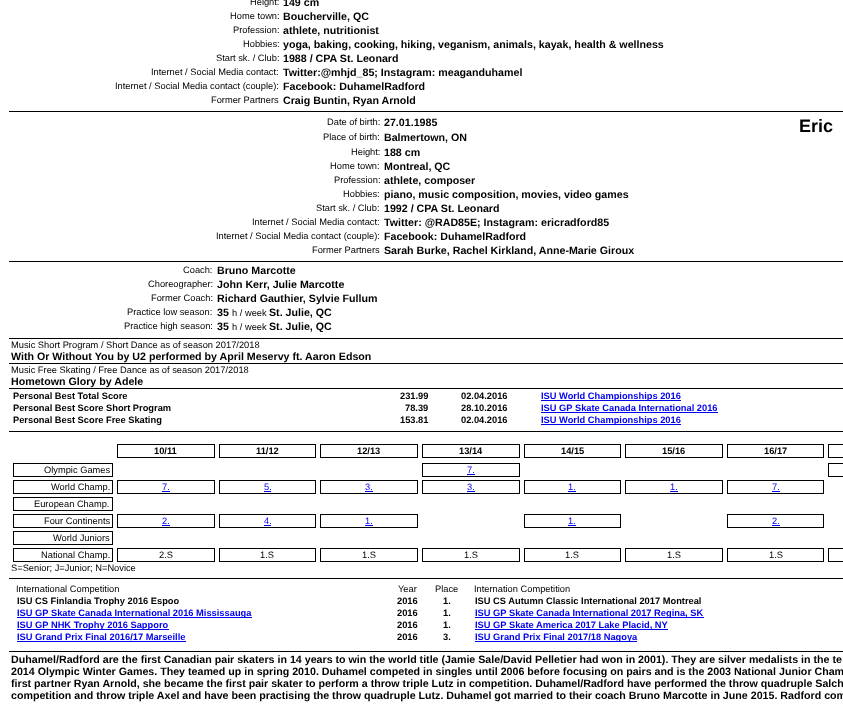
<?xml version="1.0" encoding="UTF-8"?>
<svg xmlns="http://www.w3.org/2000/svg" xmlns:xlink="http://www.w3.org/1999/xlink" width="843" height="708">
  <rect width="100%" height="100%" fill="#ffffff" />
  <rect x="9" y="111" width="834" height="1" fill="#000000" />
  <rect x="9" y="261" width="834" height="1" fill="#000000" />
  <rect x="9" y="338" width="834" height="1" fill="#000000" />
  <rect x="9" y="363" width="834" height="1" fill="#000000" />
  <rect x="9" y="388" width="834" height="1" fill="#000000" />
  <rect x="541" y="400" width="140" height="1" fill="#0000ee" />
  <rect x="541" y="412" width="177" height="1" fill="#0000ee" />
  <rect x="541" y="424" width="140" height="1" fill="#0000ee" />
  <rect x="9" y="431" width="834" height="1" fill="#000000" />
  <rect x="117" y="444" width="98" height="1" fill="#000000" />
  <rect x="214" y="444" width="1" height="14" fill="#000000" />
  <rect x="117" y="457" width="98" height="1" fill="#000000" />
  <rect x="117" y="444" width="1" height="14" fill="#000000" />
  <rect x="219" y="444" width="97" height="1" fill="#000000" />
  <rect x="315" y="444" width="1" height="14" fill="#000000" />
  <rect x="219" y="457" width="97" height="1" fill="#000000" />
  <rect x="219" y="444" width="1" height="14" fill="#000000" />
  <rect x="320" y="444" width="98" height="1" fill="#000000" />
  <rect x="417" y="444" width="1" height="14" fill="#000000" />
  <rect x="320" y="457" width="98" height="1" fill="#000000" />
  <rect x="320" y="444" width="1" height="14" fill="#000000" />
  <rect x="422" y="444" width="98" height="1" fill="#000000" />
  <rect x="519" y="444" width="1" height="14" fill="#000000" />
  <rect x="422" y="457" width="98" height="1" fill="#000000" />
  <rect x="422" y="444" width="1" height="14" fill="#000000" />
  <rect x="524" y="444" width="97" height="1" fill="#000000" />
  <rect x="620" y="444" width="1" height="14" fill="#000000" />
  <rect x="524" y="457" width="97" height="1" fill="#000000" />
  <rect x="524" y="444" width="1" height="14" fill="#000000" />
  <rect x="625" y="444" width="98" height="1" fill="#000000" />
  <rect x="722" y="444" width="1" height="14" fill="#000000" />
  <rect x="625" y="457" width="98" height="1" fill="#000000" />
  <rect x="625" y="444" width="1" height="14" fill="#000000" />
  <rect x="727" y="444" width="97" height="1" fill="#000000" />
  <rect x="823" y="444" width="1" height="14" fill="#000000" />
  <rect x="727" y="457" width="97" height="1" fill="#000000" />
  <rect x="727" y="444" width="1" height="14" fill="#000000" />
  <rect x="828" y="444" width="15" height="1" fill="#000000" />
  <rect x="828" y="457" width="15" height="1" fill="#000000" />
  <rect x="828" y="444" width="1" height="14" fill="#000000" />
  <rect x="13" y="463" width="100" height="1" fill="#000000" />
  <rect x="112" y="463" width="1" height="14" fill="#000000" />
  <rect x="13" y="476" width="100" height="1" fill="#000000" />
  <rect x="13" y="463" width="1" height="14" fill="#000000" />
  <rect x="13" y="480" width="100" height="1" fill="#000000" />
  <rect x="112" y="480" width="1" height="14" fill="#000000" />
  <rect x="13" y="493" width="100" height="1" fill="#000000" />
  <rect x="13" y="480" width="1" height="14" fill="#000000" />
  <rect x="13" y="497" width="100" height="1" fill="#000000" />
  <rect x="112" y="497" width="1" height="14" fill="#000000" />
  <rect x="13" y="510" width="100" height="1" fill="#000000" />
  <rect x="13" y="497" width="1" height="14" fill="#000000" />
  <rect x="13" y="514" width="100" height="1" fill="#000000" />
  <rect x="112" y="514" width="1" height="14" fill="#000000" />
  <rect x="13" y="527" width="100" height="1" fill="#000000" />
  <rect x="13" y="514" width="1" height="14" fill="#000000" />
  <rect x="13" y="531" width="100" height="1" fill="#000000" />
  <rect x="112" y="531" width="1" height="14" fill="#000000" />
  <rect x="13" y="544" width="100" height="1" fill="#000000" />
  <rect x="13" y="531" width="1" height="14" fill="#000000" />
  <rect x="13" y="548" width="100" height="1" fill="#000000" />
  <rect x="112" y="548" width="1" height="14" fill="#000000" />
  <rect x="13" y="561" width="100" height="1" fill="#000000" />
  <rect x="13" y="548" width="1" height="14" fill="#000000" />
  <rect x="117" y="480" width="98" height="1" fill="#000000" />
  <rect x="214" y="480" width="1" height="14" fill="#000000" />
  <rect x="117" y="493" width="98" height="1" fill="#000000" />
  <rect x="117" y="480" width="1" height="14" fill="#000000" />
  <rect x="162" y="491" width="8" height="1" fill="#0000ee" />
  <rect x="117" y="514" width="98" height="1" fill="#000000" />
  <rect x="214" y="514" width="1" height="14" fill="#000000" />
  <rect x="117" y="527" width="98" height="1" fill="#000000" />
  <rect x="117" y="514" width="1" height="14" fill="#000000" />
  <rect x="162" y="525" width="8" height="1" fill="#0000ee" />
  <rect x="117" y="548" width="98" height="1" fill="#000000" />
  <rect x="214" y="548" width="1" height="14" fill="#000000" />
  <rect x="117" y="561" width="98" height="1" fill="#000000" />
  <rect x="117" y="548" width="1" height="14" fill="#000000" />
  <rect x="219" y="480" width="97" height="1" fill="#000000" />
  <rect x="315" y="480" width="1" height="14" fill="#000000" />
  <rect x="219" y="493" width="97" height="1" fill="#000000" />
  <rect x="219" y="480" width="1" height="14" fill="#000000" />
  <rect x="264" y="491" width="7" height="1" fill="#0000ee" />
  <rect x="219" y="514" width="97" height="1" fill="#000000" />
  <rect x="315" y="514" width="1" height="14" fill="#000000" />
  <rect x="219" y="527" width="97" height="1" fill="#000000" />
  <rect x="219" y="514" width="1" height="14" fill="#000000" />
  <rect x="264" y="525" width="7" height="1" fill="#0000ee" />
  <rect x="219" y="548" width="97" height="1" fill="#000000" />
  <rect x="315" y="548" width="1" height="14" fill="#000000" />
  <rect x="219" y="561" width="97" height="1" fill="#000000" />
  <rect x="219" y="548" width="1" height="14" fill="#000000" />
  <rect x="320" y="480" width="98" height="1" fill="#000000" />
  <rect x="417" y="480" width="1" height="14" fill="#000000" />
  <rect x="320" y="493" width="98" height="1" fill="#000000" />
  <rect x="320" y="480" width="1" height="14" fill="#000000" />
  <rect x="365" y="491" width="8" height="1" fill="#0000ee" />
  <rect x="320" y="514" width="98" height="1" fill="#000000" />
  <rect x="417" y="514" width="1" height="14" fill="#000000" />
  <rect x="320" y="527" width="98" height="1" fill="#000000" />
  <rect x="320" y="514" width="1" height="14" fill="#000000" />
  <rect x="365" y="525" width="8" height="1" fill="#0000ee" />
  <rect x="320" y="548" width="98" height="1" fill="#000000" />
  <rect x="417" y="548" width="1" height="14" fill="#000000" />
  <rect x="320" y="561" width="98" height="1" fill="#000000" />
  <rect x="320" y="548" width="1" height="14" fill="#000000" />
  <rect x="422" y="463" width="98" height="1" fill="#000000" />
  <rect x="519" y="463" width="1" height="14" fill="#000000" />
  <rect x="422" y="476" width="98" height="1" fill="#000000" />
  <rect x="422" y="463" width="1" height="14" fill="#000000" />
  <rect x="467" y="474" width="8" height="1" fill="#0000ee" />
  <rect x="422" y="480" width="98" height="1" fill="#000000" />
  <rect x="519" y="480" width="1" height="14" fill="#000000" />
  <rect x="422" y="493" width="98" height="1" fill="#000000" />
  <rect x="422" y="480" width="1" height="14" fill="#000000" />
  <rect x="467" y="491" width="8" height="1" fill="#0000ee" />
  <rect x="422" y="548" width="98" height="1" fill="#000000" />
  <rect x="519" y="548" width="1" height="14" fill="#000000" />
  <rect x="422" y="561" width="98" height="1" fill="#000000" />
  <rect x="422" y="548" width="1" height="14" fill="#000000" />
  <rect x="524" y="480" width="97" height="1" fill="#000000" />
  <rect x="620" y="480" width="1" height="14" fill="#000000" />
  <rect x="524" y="493" width="97" height="1" fill="#000000" />
  <rect x="524" y="480" width="1" height="14" fill="#000000" />
  <rect x="568" y="491" width="8" height="1" fill="#0000ee" />
  <rect x="524" y="514" width="97" height="1" fill="#000000" />
  <rect x="620" y="514" width="1" height="14" fill="#000000" />
  <rect x="524" y="527" width="97" height="1" fill="#000000" />
  <rect x="524" y="514" width="1" height="14" fill="#000000" />
  <rect x="568" y="525" width="8" height="1" fill="#0000ee" />
  <rect x="524" y="548" width="97" height="1" fill="#000000" />
  <rect x="620" y="548" width="1" height="14" fill="#000000" />
  <rect x="524" y="561" width="97" height="1" fill="#000000" />
  <rect x="524" y="548" width="1" height="14" fill="#000000" />
  <rect x="625" y="480" width="98" height="1" fill="#000000" />
  <rect x="722" y="480" width="1" height="14" fill="#000000" />
  <rect x="625" y="493" width="98" height="1" fill="#000000" />
  <rect x="625" y="480" width="1" height="14" fill="#000000" />
  <rect x="670" y="491" width="8" height="1" fill="#0000ee" />
  <rect x="625" y="548" width="98" height="1" fill="#000000" />
  <rect x="722" y="548" width="1" height="14" fill="#000000" />
  <rect x="625" y="561" width="98" height="1" fill="#000000" />
  <rect x="625" y="548" width="1" height="14" fill="#000000" />
  <rect x="727" y="480" width="97" height="1" fill="#000000" />
  <rect x="823" y="480" width="1" height="14" fill="#000000" />
  <rect x="727" y="493" width="97" height="1" fill="#000000" />
  <rect x="727" y="480" width="1" height="14" fill="#000000" />
  <rect x="772" y="491" width="8" height="1" fill="#0000ee" />
  <rect x="727" y="514" width="97" height="1" fill="#000000" />
  <rect x="823" y="514" width="1" height="14" fill="#000000" />
  <rect x="727" y="527" width="97" height="1" fill="#000000" />
  <rect x="727" y="514" width="1" height="14" fill="#000000" />
  <rect x="772" y="525" width="8" height="1" fill="#0000ee" />
  <rect x="727" y="548" width="97" height="1" fill="#000000" />
  <rect x="823" y="548" width="1" height="14" fill="#000000" />
  <rect x="727" y="561" width="97" height="1" fill="#000000" />
  <rect x="727" y="548" width="1" height="14" fill="#000000" />
  <rect x="828" y="463" width="15" height="1" fill="#000000" />
  <rect x="828" y="476" width="15" height="1" fill="#000000" />
  <rect x="828" y="463" width="1" height="14" fill="#000000" />
  <rect x="828" y="548" width="15" height="1" fill="#000000" />
  <rect x="828" y="561" width="15" height="1" fill="#000000" />
  <rect x="828" y="548" width="1" height="14" fill="#000000" />
  <rect x="9" y="578" width="834" height="1" fill="#000000" />
  <rect x="17" y="617" width="235" height="1" fill="#0000ee" />
  <rect x="17" y="629" width="152" height="1" fill="#0000ee" />
  <rect x="17" y="641" width="169" height="1" fill="#0000ee" />
  <rect x="475" y="617" width="229" height="1" fill="#0000ee" />
  <rect x="475" y="629" width="193" height="1" fill="#0000ee" />
  <rect x="475" y="641" width="162" height="1" fill="#0000ee" />
  <rect x="9" y="651" width="834" height="1" fill="#000000" />
  <text x="250" y="5" style="font-family: Liberation Sans; font-size: 9.3px; fill: #000000">Height:</text>
  <text x="283" y="6" style="font-family: Liberation Sans; font-size: 10.67px; font-weight: bold; fill: #000000">149 cm</text>
  <text x="230" y="19" style="font-family: Liberation Sans; font-size: 9.3px; fill: #000000">Home town:</text>
  <text x="283" y="20" style="font-family: Liberation Sans; font-size: 10.67px; font-weight: bold; fill: #000000">Boucherville, QC</text>
  <text x="233" y="33" style="font-family: Liberation Sans; font-size: 9.3px; fill: #000000">Profession:</text>
  <text x="283" y="34" style="font-family: Liberation Sans; font-size: 10.67px; font-weight: bold; fill: #000000">athlete, nutritionist</text>
  <text x="243" y="47" style="font-family: Liberation Sans; font-size: 9.3px; fill: #000000">Hobbies:</text>
  <text x="283" y="48" style="font-family: Liberation Sans; font-size: 10.67px; font-weight: bold; fill: #000000">yoga, baking, cooking, hiking, veganism, animals, kayak, health &amp; wellness</text>
  <text x="216" y="61" style="font-family: Liberation Sans; font-size: 9.3px; fill: #000000">Start sk. / Club:</text>
  <text x="283" y="62" style="font-family: Liberation Sans; font-size: 10.67px; font-weight: bold; fill: #000000">1988 / CPA St. Leonard</text>
  <text x="151" y="75" style="font-family: Liberation Sans; font-size: 9.3px; fill: #000000">Internet / Social Media contact:</text>
  <text x="283" y="76" style="font-family: Liberation Sans; font-size: 10.67px; font-weight: bold; fill: #000000">Twitter:@mhjd_85; Instagram: meaganduhamel</text>
  <text x="115" y="89" style="font-family: Liberation Sans; font-size: 9.3px; fill: #000000">Internet / Social Media contact (couple):</text>
  <text x="283" y="90" style="font-family: Liberation Sans; font-size: 10.67px; font-weight: bold; fill: #000000">Facebook: DuhamelRadford</text>
  <text x="211" y="103" style="font-family: Liberation Sans; font-size: 9.3px; fill: #000000">Former Partners</text>
  <text x="283" y="104" style="font-family: Liberation Sans; font-size: 10.67px; font-weight: bold; fill: #000000">Craig Buntin, Ryan Arnold</text>
  <text x="327" y="125" style="font-family: Liberation Sans; font-size: 9.3px; fill: #000000">Date of birth:</text>
  <text x="384" y="126" style="font-family: Liberation Sans; font-size: 10.67px; font-weight: bold; fill: #000000">27.01.1985</text>
  <text x="799" y="132" style="font-family: Liberation Sans; font-size: 18px; font-weight: bold; fill: #000000">Eric</text>
  <text x="323" y="140" style="font-family: Liberation Sans; font-size: 9.3px; fill: #000000">Place of birth:</text>
  <text x="384" y="141" style="font-family: Liberation Sans; font-size: 10.67px; font-weight: bold; fill: #000000">Balmertown, ON</text>
  <text x="351" y="155" style="font-family: Liberation Sans; font-size: 9.3px; fill: #000000">Height:</text>
  <text x="384" y="156" style="font-family: Liberation Sans; font-size: 10.67px; font-weight: bold; fill: #000000">188 cm</text>
  <text x="330" y="169" style="font-family: Liberation Sans; font-size: 9.3px; fill: #000000">Home town:</text>
  <text x="384" y="170" style="font-family: Liberation Sans; font-size: 10.67px; font-weight: bold; fill: #000000">Montreal, QC</text>
  <text x="334" y="183" style="font-family: Liberation Sans; font-size: 9.3px; fill: #000000">Profession:</text>
  <text x="384" y="184" style="font-family: Liberation Sans; font-size: 10.67px; font-weight: bold; fill: #000000">athlete, composer</text>
  <text x="343" y="197" style="font-family: Liberation Sans; font-size: 9.3px; fill: #000000">Hobbies:</text>
  <text x="384" y="198" style="font-family: Liberation Sans; font-size: 10.67px; font-weight: bold; fill: #000000">piano, music composition, movies, video games</text>
  <text x="316" y="211" style="font-family: Liberation Sans; font-size: 9.3px; fill: #000000">Start sk. / Club:</text>
  <text x="384" y="212" style="font-family: Liberation Sans; font-size: 10.67px; font-weight: bold; fill: #000000">1992 / CPA St. Leonard</text>
  <text x="252" y="225" style="font-family: Liberation Sans; font-size: 9.3px; fill: #000000">Internet / Social Media contact:</text>
  <text x="384" y="226" style="font-family: Liberation Sans; font-size: 10.67px; font-weight: bold; fill: #000000">Twitter: @RAD85E; Instagram: ericradford85</text>
  <text x="216" y="239" style="font-family: Liberation Sans; font-size: 9.3px; fill: #000000">Internet / Social Media contact (couple):</text>
  <text x="384" y="240" style="font-family: Liberation Sans; font-size: 10.67px; font-weight: bold; fill: #000000">Facebook: DuhamelRadford</text>
  <text x="312" y="253" style="font-family: Liberation Sans; font-size: 9.3px; fill: #000000">Former Partners</text>
  <text x="384" y="254" style="font-family: Liberation Sans; font-size: 10.67px; font-weight: bold; fill: #000000">Sarah Burke, Rachel Kirkland, Anne-Marie Giroux</text>
  <text x="183" y="273" style="font-family: Liberation Sans; font-size: 9.3px; fill: #000000">Coach:</text>
  <text x="217" y="274" style="font-family: Liberation Sans; font-size: 10.67px; font-weight: bold; fill: #000000">Bruno Marcotte</text>
  <text x="148" y="287" style="font-family: Liberation Sans; font-size: 9.3px; fill: #000000">Choreographer:</text>
  <text x="217" y="288" style="font-family: Liberation Sans; font-size: 10.67px; font-weight: bold; fill: #000000">John Kerr, Julie Marcotte</text>
  <text x="151" y="301" style="font-family: Liberation Sans; font-size: 9.3px; fill: #000000">Former Coach:</text>
  <text x="217" y="302" style="font-family: Liberation Sans; font-size: 10.67px; font-weight: bold; fill: #000000">Richard Gauthier, Sylvie Fullum</text>
  <text x="127" y="315" style="font-family: Liberation Sans; font-size: 9.3px; fill: #000000">Practice low season:</text>
  <text x="217" y="316" style="font-family: Liberation Sans; font-size: 10.67px; font-weight: bold; fill: #000000">35</text>
  <text x="232" y="316" style="font-family: Liberation Sans; font-size: 9.3px; fill: #000000">h / week</text>
  <text x="269" y="316" style="font-family: Liberation Sans; font-size: 10.67px; font-weight: bold; fill: #000000">St. Julie, QC</text>
  <text x="124" y="329" style="font-family: Liberation Sans; font-size: 9.3px; fill: #000000">Practice high season:</text>
  <text x="217" y="330" style="font-family: Liberation Sans; font-size: 10.67px; font-weight: bold; fill: #000000">35</text>
  <text x="232" y="330" style="font-family: Liberation Sans; font-size: 9.3px; fill: #000000">h / week</text>
  <text x="269" y="330" style="font-family: Liberation Sans; font-size: 10.67px; font-weight: bold; fill: #000000">St. Julie, QC</text>
  <text x="11" y="348" style="font-family: Liberation Sans; font-size: 9.3px; fill: #000000">Music Short Program / Short Dance as of season 2017/2018</text>
  <text x="11" y="360" style="font-family: Liberation Sans; font-size: 10.67px; font-weight: bold; fill: #000000">With Or Without You by U2 performed by April Meservy ft. Aaron Edson</text>
  <text x="11" y="373" style="font-family: Liberation Sans; font-size: 9.3px; fill: #000000">Music Free Skating / Free Dance as of season 2017/2018</text>
  <text x="11" y="385" style="font-family: Liberation Sans; font-size: 10.67px; font-weight: bold; fill: #000000">Hometown Glory by Adele</text>
  <text x="13" y="399" style="font-family: Liberation Sans; font-size: 9.3px; font-weight: bold; fill: #000000">Personal Best Total Score</text>
  <text x="400" y="399" style="font-family: Liberation Sans; font-size: 9.3px; font-weight: bold; fill: #000000">231.99</text>
  <text x="461" y="399" style="font-family: Liberation Sans; font-size: 9.3px; font-weight: bold; fill: #000000">02.04.2016</text>
  <text x="541" y="399" style="font-family: Liberation Sans; font-size: 9.3px; font-weight: bold; fill: #0000ee">ISU World Championships 2016</text>
  <text x="13" y="411" style="font-family: Liberation Sans; font-size: 9.3px; font-weight: bold; fill: #000000">Personal Best Score Short Program</text>
  <text x="405" y="411" style="font-family: Liberation Sans; font-size: 9.3px; font-weight: bold; fill: #000000">78.39</text>
  <text x="461" y="411" style="font-family: Liberation Sans; font-size: 9.3px; font-weight: bold; fill: #000000">28.10.2016</text>
  <text x="541" y="411" style="font-family: Liberation Sans; font-size: 9.3px; font-weight: bold; fill: #0000ee">ISU GP Skate Canada International 2016</text>
  <text x="13" y="423" style="font-family: Liberation Sans; font-size: 9.3px; font-weight: bold; fill: #000000">Personal Best Score Free Skating</text>
  <text x="400" y="423" style="font-family: Liberation Sans; font-size: 9.3px; font-weight: bold; fill: #000000">153.81</text>
  <text x="461" y="423" style="font-family: Liberation Sans; font-size: 9.3px; font-weight: bold; fill: #000000">02.04.2016</text>
  <text x="541" y="423" style="font-family: Liberation Sans; font-size: 9.3px; font-weight: bold; fill: #0000ee">ISU World Championships 2016</text>
  <text x="154" y="454" style="font-family: Liberation Sans; font-size: 9.3px; font-weight: bold; fill: #000000">10/11</text>
  <text x="256" y="454" style="font-family: Liberation Sans; font-size: 9.3px; font-weight: bold; fill: #000000">11/12</text>
  <text x="357" y="454" style="font-family: Liberation Sans; font-size: 9.3px; font-weight: bold; fill: #000000">12/13</text>
  <text x="459" y="454" style="font-family: Liberation Sans; font-size: 9.3px; font-weight: bold; fill: #000000">13/14</text>
  <text x="561" y="454" style="font-family: Liberation Sans; font-size: 9.3px; font-weight: bold; fill: #000000">14/15</text>
  <text x="662" y="454" style="font-family: Liberation Sans; font-size: 9.3px; font-weight: bold; fill: #000000">15/16</text>
  <text x="764" y="454" style="font-family: Liberation Sans; font-size: 9.3px; font-weight: bold; fill: #000000">16/17</text>
  <text x="44" y="473" style="font-family: Liberation Sans; font-size: 9.3px; fill: #000000">Olympic Games</text>
  <text x="51" y="490" style="font-family: Liberation Sans; font-size: 9.3px; fill: #000000">World Champ.</text>
  <text x="34" y="507" style="font-family: Liberation Sans; font-size: 9.3px; fill: #000000">European Champ.</text>
  <text x="44" y="524" style="font-family: Liberation Sans; font-size: 9.3px; fill: #000000">Four Continents</text>
  <text x="53" y="541" style="font-family: Liberation Sans; font-size: 9.3px; fill: #000000">World Juniors</text>
  <text x="41" y="558" style="font-family: Liberation Sans; font-size: 9.3px; fill: #000000">National Champ.</text>
  <text x="162" y="490" style="font-family: Liberation Sans; font-size: 9.3px; fill: #0000ee">7.</text>
  <text x="162" y="524" style="font-family: Liberation Sans; font-size: 9.3px; fill: #0000ee">2.</text>
  <text x="159" y="558" style="font-family: Liberation Sans; font-size: 9.3px; fill: #000000">2.S</text>
  <text x="264" y="490" style="font-family: Liberation Sans; font-size: 9.3px; fill: #0000ee">5.</text>
  <text x="264" y="524" style="font-family: Liberation Sans; font-size: 9.3px; fill: #0000ee">4.</text>
  <text x="260" y="558" style="font-family: Liberation Sans; font-size: 9.3px; fill: #000000">1.S</text>
  <text x="365" y="490" style="font-family: Liberation Sans; font-size: 9.3px; fill: #0000ee">3.</text>
  <text x="365" y="524" style="font-family: Liberation Sans; font-size: 9.3px; fill: #0000ee">1.</text>
  <text x="362" y="558" style="font-family: Liberation Sans; font-size: 9.3px; fill: #000000">1.S</text>
  <text x="467" y="473" style="font-family: Liberation Sans; font-size: 9.3px; fill: #0000ee">7.</text>
  <text x="467" y="490" style="font-family: Liberation Sans; font-size: 9.3px; fill: #0000ee">3.</text>
  <text x="464" y="558" style="font-family: Liberation Sans; font-size: 9.3px; fill: #000000">1.S</text>
  <text x="568" y="490" style="font-family: Liberation Sans; font-size: 9.3px; fill: #0000ee">1.</text>
  <text x="568" y="524" style="font-family: Liberation Sans; font-size: 9.3px; fill: #0000ee">1.</text>
  <text x="565" y="558" style="font-family: Liberation Sans; font-size: 9.3px; fill: #000000">1.S</text>
  <text x="670" y="490" style="font-family: Liberation Sans; font-size: 9.3px; fill: #0000ee">1.</text>
  <text x="667" y="558" style="font-family: Liberation Sans; font-size: 9.3px; fill: #000000">1.S</text>
  <text x="772" y="490" style="font-family: Liberation Sans; font-size: 9.3px; fill: #0000ee">7.</text>
  <text x="772" y="524" style="font-family: Liberation Sans; font-size: 9.3px; fill: #0000ee">2.</text>
  <text x="769" y="558" style="font-family: Liberation Sans; font-size: 9.3px; fill: #000000">1.S</text>
  <text x="11" y="571" style="font-family: Liberation Sans; font-size: 9.3px; fill: #000000">S=Senior; J=Junior; N=Novice</text>
  <text x="16" y="592" style="font-family: Liberation Sans; font-size: 9.3px; fill: #000000">International Competition</text>
  <text x="398" y="592" style="font-family: Liberation Sans; font-size: 9.3px; fill: #000000">Year</text>
  <text x="435" y="592" style="font-family: Liberation Sans; font-size: 9.3px; fill: #000000">Place</text>
  <text x="17" y="604" style="font-family: Liberation Sans; font-size: 9.3px; font-weight: bold; fill: #000000">ISU CS Finlandia Trophy 2016 Espoo</text>
  <text x="397" y="604" style="font-family: Liberation Sans; font-size: 9.3px; font-weight: bold; fill: #000000">2016</text>
  <text x="443" y="604" style="font-family: Liberation Sans; font-size: 9.3px; font-weight: bold; fill: #000000">1.</text>
  <text x="17" y="616" style="font-family: Liberation Sans; font-size: 9.3px; font-weight: bold; fill: #0000ee">ISU GP Skate Canada International 2016 Mississauga</text>
  <text x="397" y="616" style="font-family: Liberation Sans; font-size: 9.3px; font-weight: bold; fill: #000000">2016</text>
  <text x="443" y="616" style="font-family: Liberation Sans; font-size: 9.3px; font-weight: bold; fill: #000000">1.</text>
  <text x="17" y="628" style="font-family: Liberation Sans; font-size: 9.3px; font-weight: bold; fill: #0000ee">ISU GP NHK Trophy 2016 Sapporo</text>
  <text x="397" y="628" style="font-family: Liberation Sans; font-size: 9.3px; font-weight: bold; fill: #000000">2016</text>
  <text x="443" y="628" style="font-family: Liberation Sans; font-size: 9.3px; font-weight: bold; fill: #000000">1.</text>
  <text x="17" y="640" style="font-family: Liberation Sans; font-size: 9.3px; font-weight: bold; fill: #0000ee">ISU Grand Prix Final 2016/17 Marseille</text>
  <text x="397" y="640" style="font-family: Liberation Sans; font-size: 9.3px; font-weight: bold; fill: #000000">2016</text>
  <text x="443" y="640" style="font-family: Liberation Sans; font-size: 9.3px; font-weight: bold; fill: #000000">3.</text>
  <text x="474" y="592" style="font-family: Liberation Sans; font-size: 9.3px; fill: #000000">Internation Competition</text>
  <text x="475" y="604" style="font-family: Liberation Sans; font-size: 9.3px; font-weight: bold; fill: #000000">ISU CS Autumn Classic International 2017 Montreal</text>
  <text x="475" y="616" style="font-family: Liberation Sans; font-size: 9.3px; font-weight: bold; fill: #0000ee">ISU GP Skate Canada International 2017 Regina, SK</text>
  <text x="475" y="628" style="font-family: Liberation Sans; font-size: 9.3px; font-weight: bold; fill: #0000ee">ISU GP Skate America 2017 Lake Placid, NY</text>
  <text x="475" y="640" style="font-family: Liberation Sans; font-size: 9.3px; font-weight: bold; fill: #0000ee">ISU Grand Prix Final 2017/18 Nagoya</text>
  <text x="11" y="663" style="font-family: Liberation Sans; font-size: 10.67px; font-weight: bold; fill: #000000">Duhamel/Radford are the first Canadian pair skaters in 14 years to win the world title (Jamie Sale/David Pelletier had won in 2001). They are silver medalists in the te</text>
  <text x="11" y="675" style="font-family: Liberation Sans; font-size: 10.67px; font-weight: bold; fill: #000000">2014 Olympic Winter Games. They teamed up in spring 2010. Duhamel competed in singles until 2006 before focusing on pairs and is the 2003 National Junior Cham</text>
  <text x="11" y="687" style="font-family: Liberation Sans; font-size: 10.67px; font-weight: bold; fill: #000000">first partner Ryan Arnold, she became the first pair skater to perform a throw triple Lutz in competition. Duhamel/Radford have performed the throw quadruple Salch</text>
  <text x="11" y="699" style="font-family: Liberation Sans; font-size: 10.67px; font-weight: bold; fill: #000000">competition and throw triple Axel and have been practising the throw quadruple Lutz. Duhamel got married to their coach Bruno Marcotte in June 2015. Radford com</text>
</svg>
